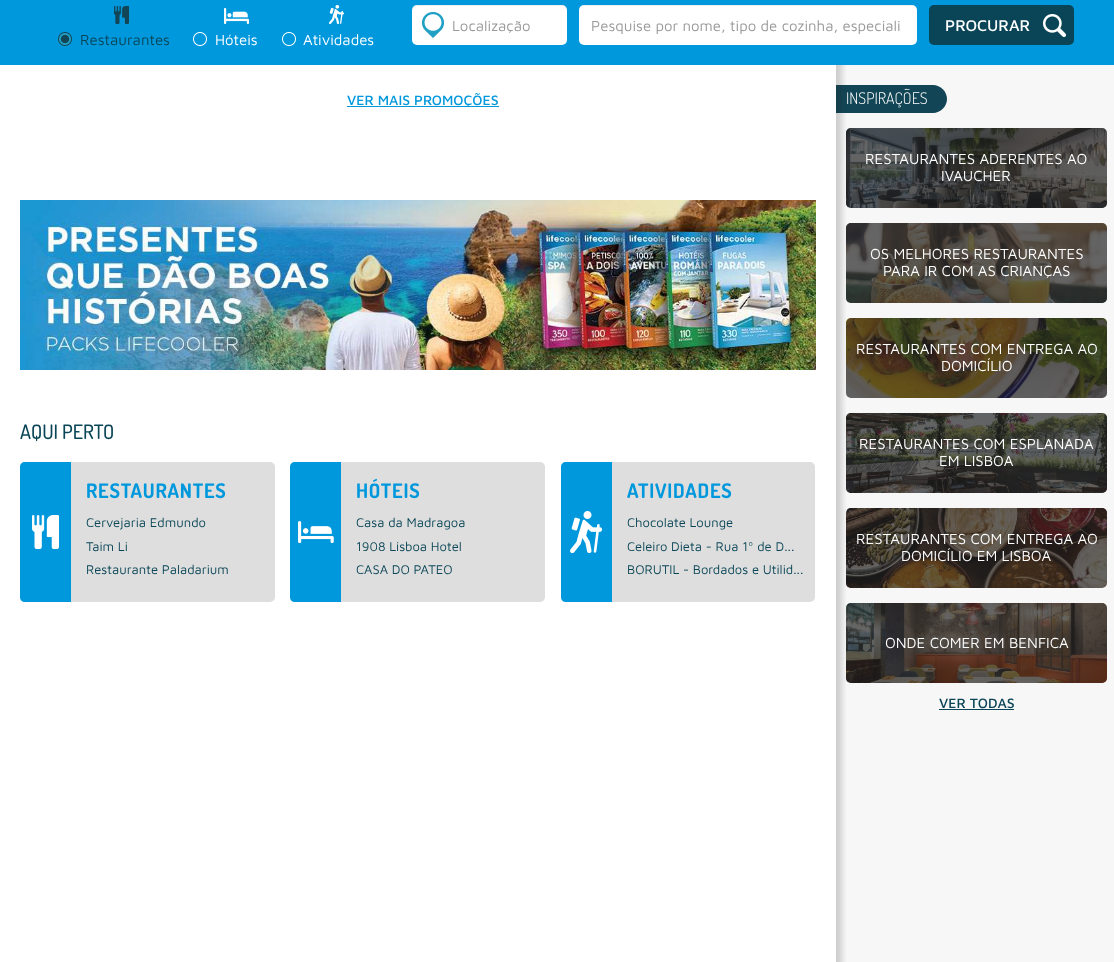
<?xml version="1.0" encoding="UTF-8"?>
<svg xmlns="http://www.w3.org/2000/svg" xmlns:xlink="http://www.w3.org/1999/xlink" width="1114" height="962">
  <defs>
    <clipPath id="clip1"><rect x="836" y="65" width="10" height="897" /></clipPath>
    <clipPath id="clip2"><rect x="591" y="17" width="314" height="17" /></clipPath>
  </defs>
  <rect width="100%" height="100%" fill="#ffffff" />
  <rect x="836" y="65" width="278" height="897" fill="#f7f7f7" />
  <path d="M 836 85 h 97 c 7.5 0 14 6.5 14 14 c 0 7.5 -6.5 14 -14 14 h -97 z" fill="#124555" />
  <image x="846" y="128" width="261" height="80" xlink:href="image12.png" />
  <rect x="846" y="128" width="261" height="80" rx="5" fill="#232323" fill-opacity="0.7" />
  <image x="846" y="223" width="261" height="80" xlink:href="image13.png" />
  <rect x="846" y="223" width="261" height="80" rx="5" fill="#232323" fill-opacity="0.7" />
  <image x="846" y="318" width="261" height="80" xlink:href="image14.png" />
  <rect x="846" y="318" width="261" height="80" rx="5" fill="#232323" fill-opacity="0.7" />
  <image x="846" y="413" width="261" height="80" xlink:href="image15.png" />
  <rect x="846" y="413" width="261" height="80" rx="5" fill="#232323" fill-opacity="0.7" />
  <image x="846" y="508" width="261" height="80" xlink:href="image16.png" />
  <rect x="846" y="508" width="261" height="80" rx="5" fill="#232323" fill-opacity="0.7" />
  <image x="846" y="603" width="261" height="80" xlink:href="image17.png" />
  <rect x="846" y="603" width="261" height="80" rx="5" fill="#232323" fill-opacity="0.7" />
  <g clip-path="url(#clip1)">
    <rect x="6" y="-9" width="836" height="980" fill="#292929" fill-opacity="0.2" filter="blur(3px)" />
  </g>
  <rect width="1114" height="65" fill="#0098dd" />
  <rect x="412" y="5" width="155" height="40" rx="5" fill="#ffffff" />
  <image x="422" y="12" width="22" height="26" xlink:href="image1.png" />
  <path d="M 417 6 h 145 c 3 0 5 2 5 5 v -1 c 0 -3 -2 -5 -5 -5 h -145 c -3 0 -5 2 -5 5 v 1 c 0 -3 2 -5 5 -5 z" fill="#000000" fill-opacity="0.07" />
  <rect x="579" y="5" width="338" height="40" rx="5" fill="#ffffff" />
  <path d="M 584 6 h 328 c 3 0 5 2 5 5 c 0 -3 -2 -6 -5 -6 h -328 c -3 0 -5 3 -5 6 c 0 -3 2 -5 5 -5 z" fill="#000000" fill-opacity="0.07" />
  <rect x="929" y="5" width="145" height="40" rx="5" fill="#094556" />
  <image x="1043" y="14" width="23" height="23" xlink:href="image2.png" />
  <image x="114" y="6" width="15" height="18" xlink:href="image3.png" />
  <image x="58" y="32" width="14" height="14" xlink:href="image4.png" />
  <image x="224" y="8" width="25" height="16" xlink:href="image5.png" />
  <image x="193" y="32" width="14" height="14" xlink:href="image6.png" />
  <image x="329" y="5" width="15" height="19" xlink:href="image7.png" />
  <image x="282" y="32" width="14" height="14" xlink:href="image6.png" />
  <rect x="347" y="106" width="152" height="1" fill="#0098dd" />
  <image x="20" y="200" width="796" height="170" xlink:href="image8.png" />
  <rect x="20" y="462" width="255" height="140" rx="5" fill="#dedede" />
  <path d="M 25 462 h 46 v 140 h -46 c -3 0 -5 -2 -5 -5 v -130 c 0 -3 2 -5 5 -5 z" fill="#0098dd" />
  <image x="32" y="515" width="27" height="34" xlink:href="image9.png" />
  <rect x="290" y="462" width="255" height="140" rx="5" fill="#dedede" />
  <path d="M 295 462 h 46 v 140 h -46 c -3 0 -5 -2 -5 -5 v -130 c 0 -3 2 -5 5 -5 z" fill="#0098dd" />
  <image x="298" y="521" width="36" height="22" xlink:href="image10.png" />
  <rect x="561" y="462" width="254" height="140" rx="5" fill="#dedede" />
  <path d="M 566 462 h 46 v 140 h -46 c -3 0 -5 -2 -5 -5 v -130 c 0 -3 2 -5 5 -5 z" fill="#0098dd" />
  <image x="570" y="511" width="32" height="42" xlink:href="image11.png" />
  <rect x="939" y="709" width="75" height="1" fill="#094556" />
  <text x="452" y="31" style="font-family: Maven Pro; font-size: 15px; fill: #999999">Localização</text>
  <g clip-path="url(#clip2)">
    <text x="591" y="31" style="font-family: Maven Pro; font-size: 15px; fill: #999999">Pesquise por nome, tipo de cozinha, especiali</text>
  </g>
  <text x="945" y="31" style="font-family: Maven Pro; font-size: 16px; font-weight: 500; fill: #ffffff">PROCURAR</text>
  <text x="80" y="45" style="font-family: Maven Pro; font-size: 15px; fill: #094556">Restaurantes</text>
  <text x="215" y="45" style="font-family: Maven Pro; font-size: 15px; fill: #ffffff">Hóteis</text>
  <text x="303" y="45" style="font-family: Maven Pro; font-size: 15px; fill: #ffffff">Atividades</text>
  <text x="347" y="105" style="font-family: Maven Pro; font-size: 14px; font-weight: 500; fill: #0098dd">VER MAIS PROMOÇÕES</text>
  <text x="20" y="439" style="font-family: Dosis; font-size: 20px; font-weight: 500; fill: #094556">AQUI PERTO</text>
  <text x="86" y="498" style="font-family: Dosis; font-size: 20px; font-weight: bold; letter-spacing: 0.75px; fill: #0098dd">RESTAURANTES</text>
  <text x="86" y="527" style="font-family: Maven Pro; font-size: 13px; fill: #094556">Cervejaria Edmundo</text>
  <text x="86" y="551" style="font-family: Maven Pro; font-size: 13px; fill: #094556">Taim Li</text>
  <text x="86" y="574" style="font-family: Maven Pro; font-size: 13px; fill: #094556">Restaurante Paladarium</text>
  <text x="356" y="498" style="font-family: Dosis; font-size: 20px; font-weight: bold; letter-spacing: 0.75px; fill: #0098dd">HÓTEIS</text>
  <text x="356" y="527" style="font-family: Maven Pro; font-size: 13px; fill: #094556">Casa da Madragoa</text>
  <text x="356" y="551" style="font-family: Maven Pro; font-size: 13px; fill: #094556">1908 Lisboa Hotel</text>
  <text x="356" y="574" style="font-family: Maven Pro; font-size: 13px; fill: #094556">CASA DO PATEO</text>
  <text x="627" y="498" style="font-family: Dosis; font-size: 20px; font-weight: bold; letter-spacing: 0.75px; fill: #0098dd">ATIVIDADES</text>
  <text x="627" y="527" style="font-family: Maven Pro; font-size: 13px; fill: #094556">Chocolate Lounge</text>
  <text x="627" y="551" style="font-family: Maven Pro; font-size: 13px; fill: #094556">Celeiro Dieta - Rua 1º de D...</text>
  <text x="627" y="574" style="font-family: Maven Pro; font-size: 13px; fill: #094556">BORUTIL - Bordados e Utilid...</text>
  <text x="846" y="104" style="font-family: Dosis; font-size: 16px; font-weight: 300; fill: #ffffff">INSPIRAÇÕES</text>
  <text x="865" y="164" style="font-family: Maven Pro; font-size: 15px; fill: #ffffff">RESTAURANTES ADERENTES AO</text>
  <text x="941" y="181" style="font-family: Maven Pro; font-size: 15px; fill: #ffffff">IVAUCHER</text>
  <text x="870" y="259" style="font-family: Maven Pro; font-size: 15px; fill: #ffffff">OS MELHORES RESTAURANTES</text>
  <text x="883" y="276" style="font-family: Maven Pro; font-size: 15px; fill: #ffffff">PARA IR COM AS CRIANÇAS</text>
  <text x="856" y="354" style="font-family: Maven Pro; font-size: 15px; fill: #ffffff">RESTAURANTES COM ENTREGA AO</text>
  <text x="941" y="371" style="font-family: Maven Pro; font-size: 15px; fill: #ffffff">DOMICÍLIO</text>
  <text x="859" y="449" style="font-family: Maven Pro; font-size: 15px; fill: #ffffff">RESTAURANTES COM ESPLANADA</text>
  <text x="939" y="466" style="font-family: Maven Pro; font-size: 15px; fill: #ffffff">EM LISBOA</text>
  <text x="856" y="544" style="font-family: Maven Pro; font-size: 15px; fill: #ffffff">RESTAURANTES COM ENTREGA AO</text>
  <text x="901" y="561" style="font-family: Maven Pro; font-size: 15px; fill: #ffffff">DOMICÍLIO EM LISBOA</text>
  <text x="885" y="648" style="font-family: Maven Pro; font-size: 15px; fill: #ffffff">ONDE COMER EM BENFICA</text>
  <text x="939" y="708" style="font-family: Maven Pro; font-size: 14px; font-weight: 500; fill: #094556">VER TODAS</text>
</svg>
